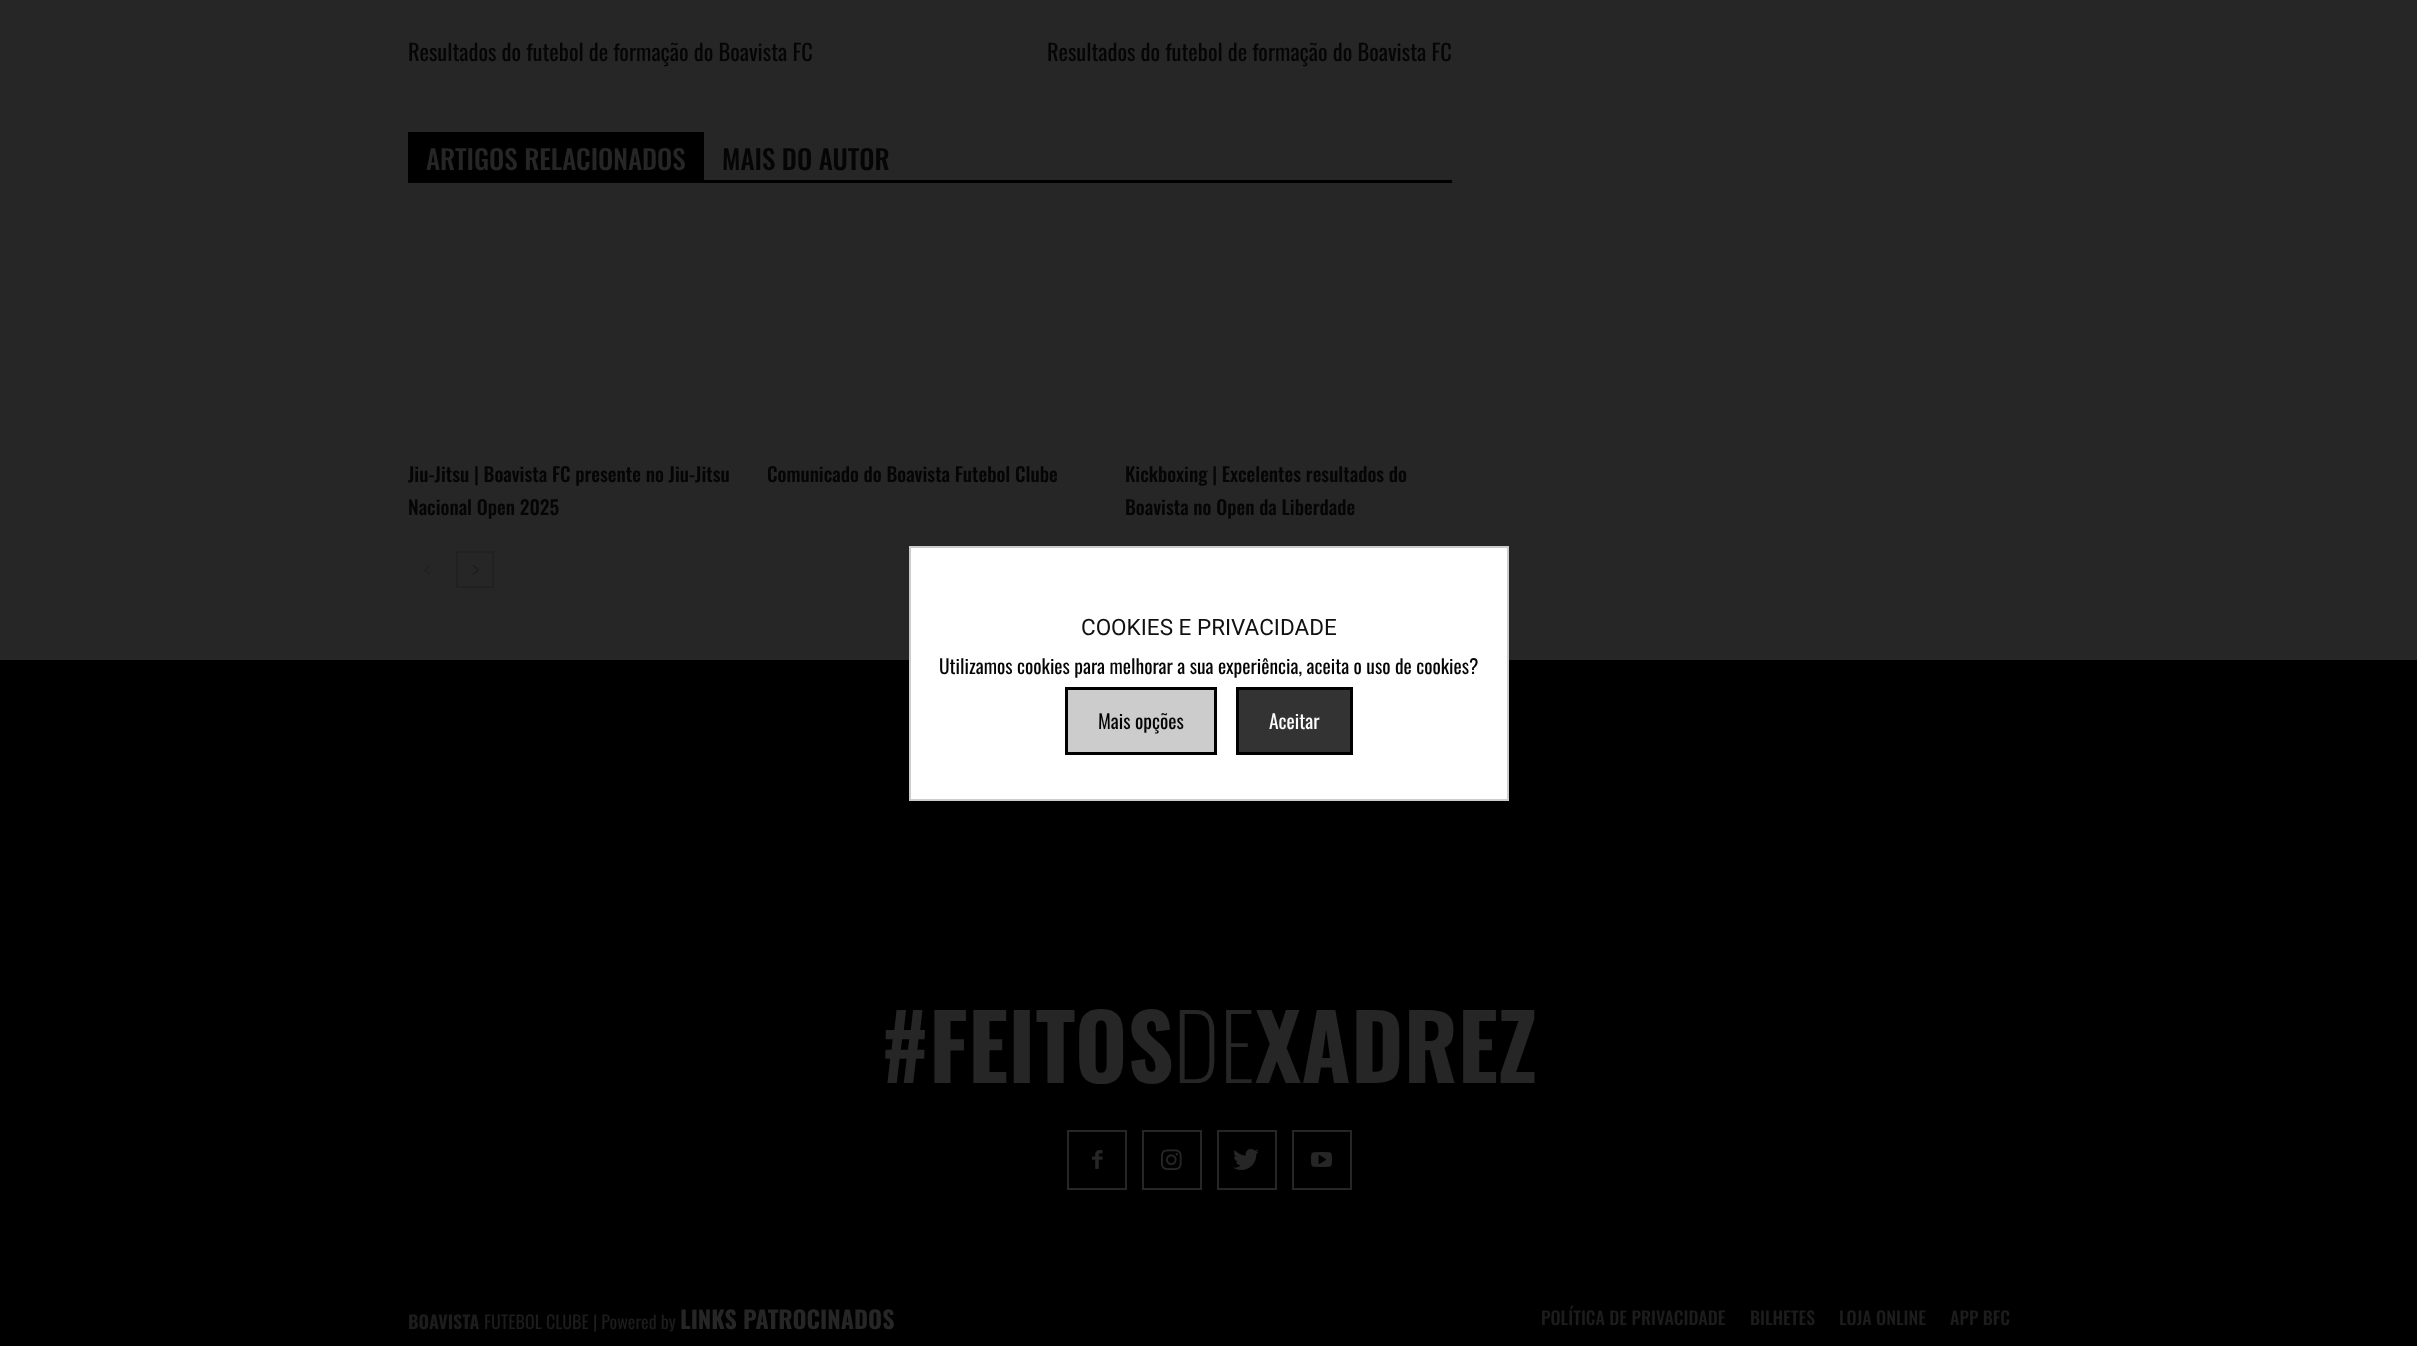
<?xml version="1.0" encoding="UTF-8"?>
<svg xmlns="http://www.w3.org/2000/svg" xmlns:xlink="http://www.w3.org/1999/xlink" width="2417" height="1346">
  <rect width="100%" height="100%" fill="#262626" />
  <rect x="408" y="180" width="1044" height="3" fill="#000000" />
  <rect x="408" y="132" width="296" height="48" fill="#000000" />
  <image x="424" y="564" width="7" height="11" xlink:href="image1.png" />
  <rect x="457" y="552" width="36" height="35" fill="none" stroke="#212121" stroke-width="2" />
  <image x="472" y="565" width="7" height="11" xlink:href="image2.png" />
  <rect y="660" width="2417" height="686" fill="#000000" />
  <image x="1092" y="1150" width="11" height="19" xlink:href="image3.png" />
  <rect x="1068" y="1131" width="58" height="58" fill="none" stroke="#262626" stroke-width="2" />
  <image x="1161" y="1149" width="21" height="21" xlink:href="image4.png" />
  <rect x="1143" y="1131" width="58" height="58" fill="none" stroke="#262626" stroke-width="2" />
  <image x="1233" y="1149" width="26" height="21" xlink:href="image5.png" />
  <rect x="1218" y="1131" width="58" height="58" fill="none" stroke="#262626" stroke-width="2" />
  <image x="1311" y="1152" width="21" height="15" xlink:href="image6.png" />
  <rect x="1293" y="1131" width="58" height="58" fill="none" stroke="#262626" stroke-width="2" />
  <rect x="910" y="547" width="598" height="253" fill="#ffffff" stroke="#cccccc" stroke-width="2" />
  <rect x="1066.5" y="688.5" width="149" height="65" fill="#cccccc" stroke="#000000" stroke-width="3" />
  <rect x="1237.5" y="688.5" width="114" height="65" fill="#333333" stroke="#000000" stroke-width="3" />
  <text x="408" y="61" style="font-family: Oswald; font-size: 22.5px; fill: #050505">Resultados do futebol de formação do Boavista FC</text>
  <text x="1047" y="61" style="font-family: Oswald; font-size: 22.5px; fill: #050505">Resultados do futebol de formação do Boavista FC</text>
  <text x="426" y="170" style="font-family: Oswald; font-size: 27px; font-weight: 500; fill: #262626">ARTIGOS RELACIONADOS</text>
  <text x="722" y="170" style="font-family: Oswald; font-size: 27px; font-weight: 500; fill: #050505">MAIS DO AUTOR</text>
  <text x="408" y="482" style="font-family: Oswald; font-size: 19.5px; font-weight: 500; fill: #050505">Jiu-Jitsu | Boavista FC presente no Jiu-Jitsu</text>
  <text x="408" y="515" style="font-family: Oswald; font-size: 19.5px; font-weight: 500; fill: #050505">Nacional Open 2025</text>
  <text x="767" y="482" style="font-family: Oswald; font-size: 19.5px; font-weight: 500; fill: #050505">Comunicado do Boavista Futebol Clube</text>
  <text x="1125" y="482" style="font-family: Oswald; font-size: 19.5px; font-weight: 500; fill: #050505">Kickboxing | Excelentes resultados do</text>
  <text x="1125" y="515" style="font-family: Oswald; font-size: 19.5px; font-weight: 500; fill: #050505">Boavista no Open da Liberdade</text>
  <text x="881" y="1083" style="font-family: Oswald; font-size: 90px; font-weight: bold; fill: #262626">#FEITOS</text>
  <text x="1173" y="1083" style="font-family: Oswald; font-size: 90px; font-weight: 200; fill: #262626">DE</text>
  <text x="1255" y="1083" style="font-family: Oswald; font-size: 90px; font-weight: bold; fill: #262626">XADREZ</text>
  <text x="408" y="1329" style="font-family: Oswald; font-size: 18px; font-weight: bold; fill: #1d1d1d">BOAVISTA</text>
  <text x="484" y="1329" style="font-family: Oswald; font-size: 18px; fill: #1d1d1d">FUTEBOL CLUBE | Powered by</text>
  <text x="680" y="1329" style="font-family: Oswald; font-size: 24px; font-weight: bold; fill: #262626">LINKS PATROCINADOS</text>
  <text x="1541" y="1325" style="font-family: Oswald; font-size: 18px; font-weight: 500; fill: #1d1d1d">POLÍTICA DE PRIVACIDADE</text>
  <text x="1750" y="1325" style="font-family: Oswald; font-size: 18px; font-weight: 500; fill: #1d1d1d">BILHETES</text>
  <text x="1839" y="1325" style="font-family: Oswald; font-size: 18px; font-weight: 500; fill: #1d1d1d">LOJA ONLINE</text>
  <text x="1950" y="1325" style="font-family: Oswald; font-size: 18px; font-weight: 500; fill: #1d1d1d">APP BFC</text>
  <text x="1081" y="635" style="font-family: Roboto; font-size: 22.5px; fill: #111111">COOKIES E PRIVACIDADE</text>
  <text x="939" y="674" style="font-family: Oswald; font-size: 19.5px; fill: #050505">Utilizamos cookies para melhorar a sua experiência, aceita o uso de cookies?</text>
  <text x="1098" y="729" style="font-family: Oswald; font-size: 19.5px; fill: #050505">Mais opções</text>
  <text x="1269" y="729" style="font-family: Oswald; font-size: 19.5px; fill: #ffffff">Aceitar</text>
</svg>
